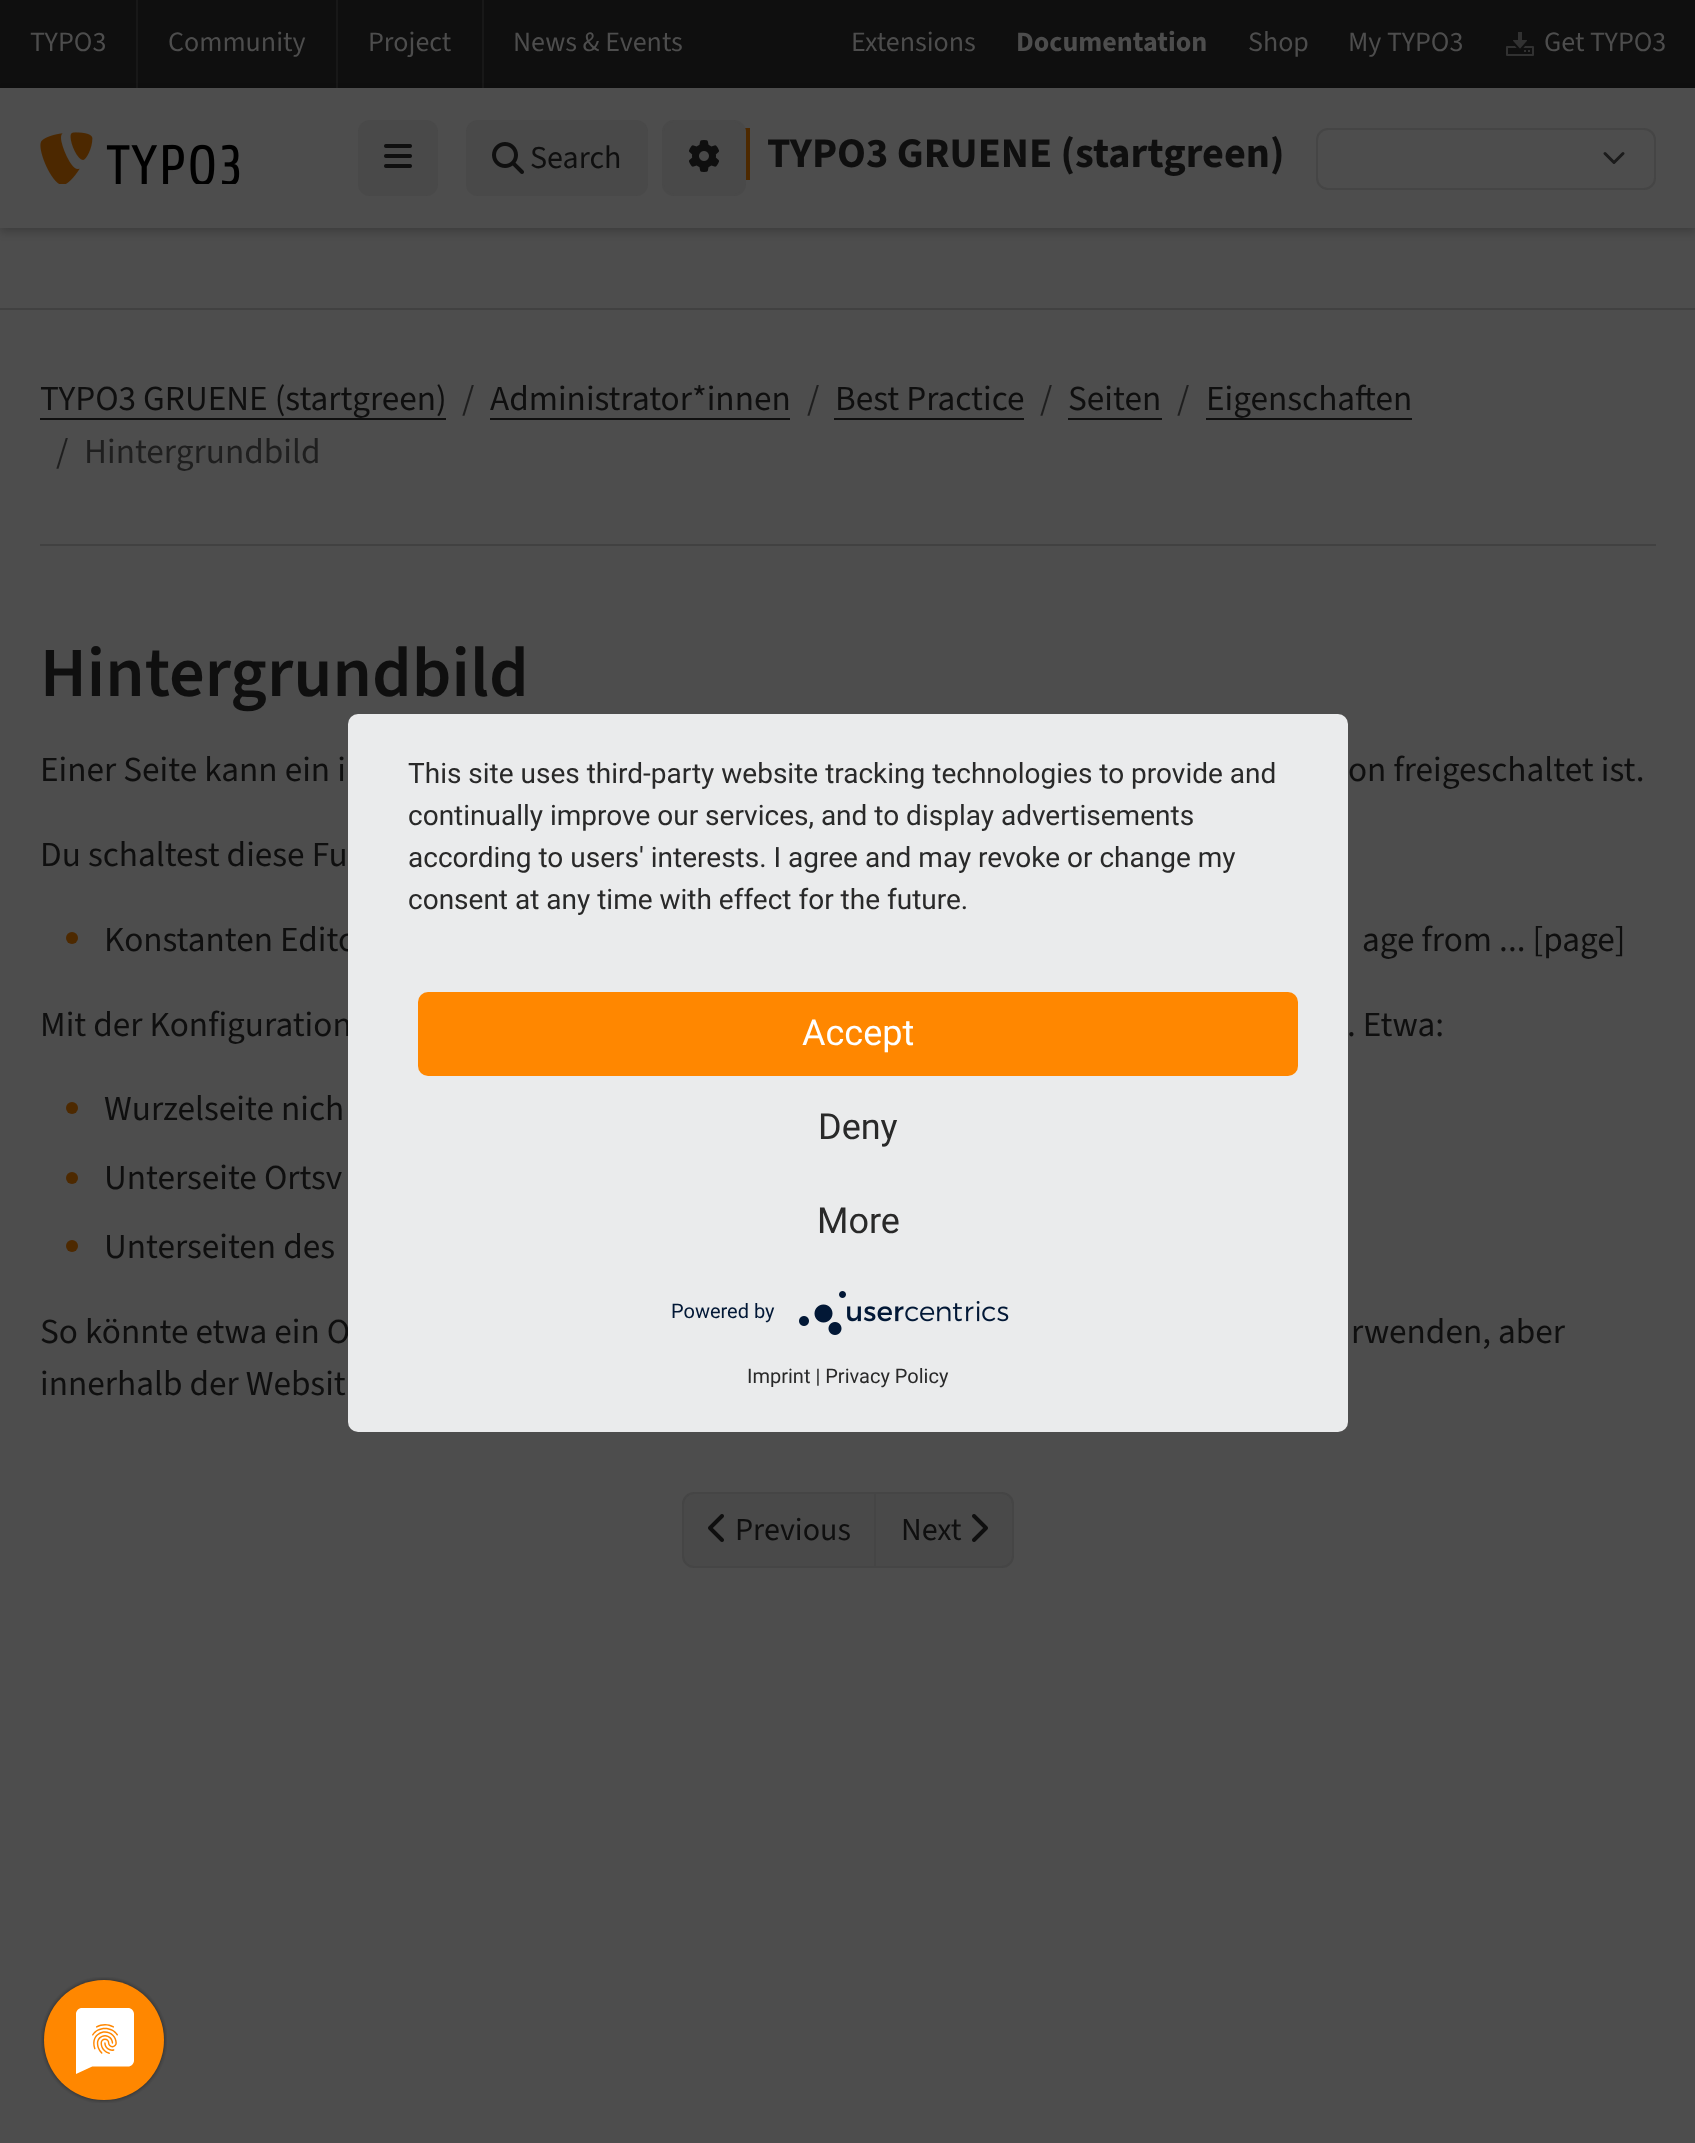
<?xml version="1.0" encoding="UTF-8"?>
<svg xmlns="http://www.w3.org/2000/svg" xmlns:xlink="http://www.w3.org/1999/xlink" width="1695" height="2143">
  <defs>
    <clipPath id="clip1"><path d="M 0 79 h 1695 v 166 h -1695 z m 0 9 h 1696 v 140 h -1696 z" clip-rule="evenodd" /></clipPath>
    <clipPath id="clip2"><rect x="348" y="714" width="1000" height="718" rx="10" /></clipPath>
  </defs>
  <rect width="100%" height="100%" fill="#4d4d4d" />
  <rect width="1695" height="88" fill="#0f0f0f" />
  <rect x="136" width="2" height="88" fill="#181818" />
  <rect x="336" width="2" height="88" fill="#181818" />
  <rect x="482" width="2" height="88" fill="#181818" />
  <image x="1506" y="32" width="28" height="24" xlink:href="image1.png" />
  <g clip-path="url(#clip1)">
    <rect y="92" width="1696" height="140" fill="#000000" fill-opacity="0.2" filter="blur(4px)" />
  </g>
  <image x="40" y="132" width="200" height="52" xlink:href="image2.png" />
  <rect x="358" y="120" width="80" height="76" rx="12" fill="#494949" />
  <image x="384" y="144" width="28" height="24" xlink:href="image3.png" />
  <rect x="466" y="120" width="182" height="76" rx="12" fill="#494949" />
  <image x="492" y="142" width="32" height="32" xlink:href="image4.png" />
  <rect x="745" y="128" width="5" height="52" fill="#4d2900" />
  <rect x="663" y="121" width="82" height="74" rx="11" fill="#494949" stroke="#494949" stroke-width="2" />
  <image x="689" y="140" width="30" height="32" xlink:href="image5.png" />
  <path d="M 1605 153.5 l 9 9 l 9 -9" fill="none" stroke="#1b1b1b" stroke-width="3" stroke-linecap="round" stroke-linejoin="round" />
  <rect x="1317" y="129" width="338" height="60" rx="11" fill="none" stroke="#454545" stroke-width="2" />
  <rect y="308" width="1695" height="2" fill="#414141" />
  <rect x="40" y="544" width="1616" height="2" fill="#414141" />
  <rect x="40" y="418" width="406" height="2" fill="#0f0f0f" />
  <rect x="490" y="418" width="300" height="2" fill="#0f0f0f" />
  <rect x="834" y="418" width="190" height="2" fill="#0f0f0f" />
  <rect x="1068" y="418" width="94" height="2" fill="#0f0f0f" />
  <rect x="1206" y="418" width="206" height="2" fill="#0f0f0f" />
  <circle cx="72" cy="938" r="6" fill="#4d2900" />
  <circle cx="72" cy="1108" r="6" fill="#4d2900" />
  <circle cx="72" cy="1178" r="6" fill="#4d2900" />
  <circle cx="72" cy="1246" r="6" fill="#4d2900" />
  <path d="M 694 1493 h 181 v 74 h -181 c -6 0 -11 -5 -11 -11 v -52 c 0 -6 5 -11 11 -11 z" fill="#494949" stroke="#454545" stroke-width="2" />
  <image x="708" y="1514" width="16" height="28" xlink:href="image6.png" />
  <path d="M 875 1493 h 127 c 6 0 11 5 11 11 v 52 c 0 6 -5 11 -11 11 h -127 z" fill="#494949" stroke="#454545" stroke-width="2" />
  <image x="972" y="1514" width="16" height="28" xlink:href="image7.png" />
  <g clip-path="url(#clip2)">
    <rect x="348" y="726" width="1000" height="718" fill="#000000" fill-opacity="0.3" filter="blur(36px)" />
  </g>
  <image x="41" y="1977" width="126" height="126" xlink:href="image9.png" />
  <text x="30" y="51" style="font-family: 'Source Sans 3'; font-size: 28px; font-weight: 200; fill: #4d4d4d">TYPO3</text>
  <text x="168" y="51" style="font-family: 'Source Sans 3'; font-size: 28px; font-weight: 200; fill: #4d4d4d">Community</text>
  <text x="368" y="51" style="font-family: 'Source Sans 3'; font-size: 28px; font-weight: 200; fill: #4d4d4d">Project</text>
  <text x="513" y="51" style="font-family: 'Source Sans 3'; font-size: 28px; font-weight: 200; fill: #4d4d4d">News &amp; Events</text>
  <text x="851" y="51" style="font-family: 'Source Sans 3'; font-size: 28px; font-weight: 200; fill: #4d4d4d">Extensions</text>
  <text x="1016" y="51" style="font-family: 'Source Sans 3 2'; font-size: 28px; font-weight: 200; fill: #4d4d4d">Documentation</text>
  <text x="1248" y="51" style="font-family: 'Source Sans 3'; font-size: 28px; font-weight: 200; fill: #4d4d4d">Shop</text>
  <text x="1348" y="51" style="font-family: 'Source Sans 3'; font-size: 28px; font-weight: 200; fill: #4d4d4d">My TYPO3</text>
  <text x="1544" y="51" style="font-family: 'Source Sans 3'; font-size: 28px; font-weight: 200; fill: #4d4d4d">Get TYPO3</text>
  <text x="530" y="168" style="font-family: 'Source Sans 3'; font-size: 32px; font-weight: 200; fill: #0f0f0f">Search</text>
  <text x="767" y="167" style="font-family: 'Source Sans 3 2'; font-size: 42.25px; font-weight: 200; fill: #0f0f0f">TYPO3 GRUENE (startgreen)</text>
  <text x="40" y="410" style="font-family: 'Source Sans 3'; font-size: 35.25px; font-weight: 200; fill: #0f0f0f">TYPO3 GRUENE (startgreen)</text>
  <text x="462" y="410" style="font-family: 'Source Sans 3'; font-size: 35.25px; font-weight: 200; fill: #1f1f1f">/</text>
  <text x="490" y="410" style="font-family: 'Source Sans 3'; font-size: 35.25px; font-weight: 200; fill: #0f0f0f">Administrator*innen</text>
  <text x="807" y="410" style="font-family: 'Source Sans 3'; font-size: 35.25px; font-weight: 200; fill: #1f1f1f">/</text>
  <text x="835" y="410" style="font-family: 'Source Sans 3'; font-size: 35.25px; font-weight: 200; fill: #0f0f0f">Best Practice</text>
  <text x="1040" y="410" style="font-family: 'Source Sans 3'; font-size: 35.25px; font-weight: 200; fill: #1f1f1f">/</text>
  <text x="1068" y="410" style="font-family: 'Source Sans 3'; font-size: 35.25px; font-weight: 200; fill: #0f0f0f">Seiten</text>
  <text x="1177" y="410" style="font-family: 'Source Sans 3'; font-size: 35.25px; font-weight: 200; fill: #1f1f1f">/</text>
  <text x="1206" y="410" style="font-family: 'Source Sans 3'; font-size: 35.25px; font-weight: 200; fill: #0f0f0f">Eigenschaften</text>
  <text x="56" y="463" style="font-family: 'Source Sans 3'; font-size: 35.25px; font-weight: 200; fill: #1f1f1f">/</text>
  <text x="84" y="463" style="font-family: 'Source Sans 3'; font-size: 35.25px; font-weight: 200; fill: #1f1f1f">Hintergrundbild</text>
  <text x="40" y="696" style="font-family: 'Source Sans 3'; font-size: 70.5px; font-weight: 600; fill: #0f0f0f">Hintergrundbild</text>
  <text x="40" y="781" style="font-family: 'Source Sans 3'; font-size: 35.25px; font-weight: 200; fill: #0f0f0f">Einer Seite kann ein i</text>
  <text x="1348" y="781" style="font-family: 'Source Sans 3'; font-size: 35.25px; font-weight: 200; fill: #0f0f0f">on freigeschaltet ist.</text>
  <text x="40" y="866" style="font-family: 'Source Sans 3'; font-size: 35.25px; font-weight: 200; fill: #0f0f0f">Du schaltest diese Fu</text>
  <text x="104" y="951" style="font-family: 'Source Sans 3'; font-size: 35.25px; font-weight: 200; fill: #0f0f0f">Konstanten Edito</text>
  <text x="1362" y="951" style="font-family: 'Source Sans 3'; font-size: 35.25px; font-weight: 200; fill: #0f0f0f">age from ... [page]</text>
  <text x="40" y="1036" style="font-family: 'Source Sans 3'; font-size: 35.25px; font-weight: 200; fill: #0f0f0f">Mit der Konfiguration</text>
  <text x="1347" y="1036" style="font-family: 'Source Sans 3'; font-size: 35.25px; font-weight: 200; fill: #0f0f0f">. Etwa:</text>
  <text x="104" y="1120" style="font-family: 'Source Sans 3'; font-size: 35.25px; font-weight: 200; fill: #0f0f0f">Wurzelseite nich</text>
  <text x="104" y="1189" style="font-family: 'Source Sans 3'; font-size: 35.25px; font-weight: 200; fill: #0f0f0f">Unterseite Ortsv</text>
  <text x="104" y="1258" style="font-family: 'Source Sans 3'; font-size: 35.25px; font-weight: 200; fill: #0f0f0f">Unterseiten des</text>
  <text x="40" y="1343" style="font-family: 'Source Sans 3'; font-size: 35.25px; font-weight: 200; fill: #0f0f0f">So könnte etwa ein O</text>
  <text x="1351" y="1343" style="font-family: 'Source Sans 3'; font-size: 35.25px; font-weight: 200; fill: #0f0f0f">rwenden,</text>
  <text x="1498" y="1343" style="font-family: 'Source Sans 3'; font-size: 35.25px; font-weight: 200; fill: #0f0f0f">aber</text>
  <text x="40" y="1395" style="font-family: 'Source Sans 3'; font-size: 35.25px; font-weight: 200; fill: #0f0f0f">innerhalb der Websit</text>
  <text x="735" y="1540" style="font-family: 'Source Sans 3'; font-size: 32px; font-weight: 200; fill: #0f0f0f">Previous</text>
  <text x="901" y="1540" style="font-family: 'Source Sans 3'; font-size: 32px; font-weight: 200; fill: #0f0f0f">Next</text>
  <rect x="348" y="714" width="1000" height="718" rx="10" fill="#eaebec" />
  <text x="408" y="783" style="font-family: Roboto; font-size: 28px; fill: #292929">This site uses third-party website tracking technologies to provide and</text>
  <text x="408" y="825" style="font-family: Roboto; font-size: 28px; fill: #292929">continually improve our services, and to display advertisements</text>
  <text x="408" y="867" style="font-family: Roboto; font-size: 28px; fill: #292929">according to users' interests. I agree and may revoke or change my</text>
  <text x="408" y="909" style="font-family: Roboto; font-size: 28px; fill: #292929">consent at any time with effect for the future.</text>
  <rect x="418" y="992" width="880" height="84" rx="10" fill="#ff8700" />
  <text x="802" y="1045" style="font-family: Roboto; font-size: 36px; fill: #ffffff">Accept</text>
  <text x="818" y="1139" style="font-family: Roboto; font-size: 36px; fill: #292929">Deny</text>
  <text x="817" y="1233" style="font-family: Roboto; font-size: 36px; fill: #292929">More</text>
  <text x="671" y="1318" style="font-family: Roboto; font-size: 20px; fill: #021836">Powered by</text>
  <image x="799" y="1291" width="210" height="44" xlink:href="image8.png" />
  <text x="747" y="1383" style="font-family: Roboto; font-size: 20px; fill: #292929">Imprint | Privacy Policy</text>
</svg>
